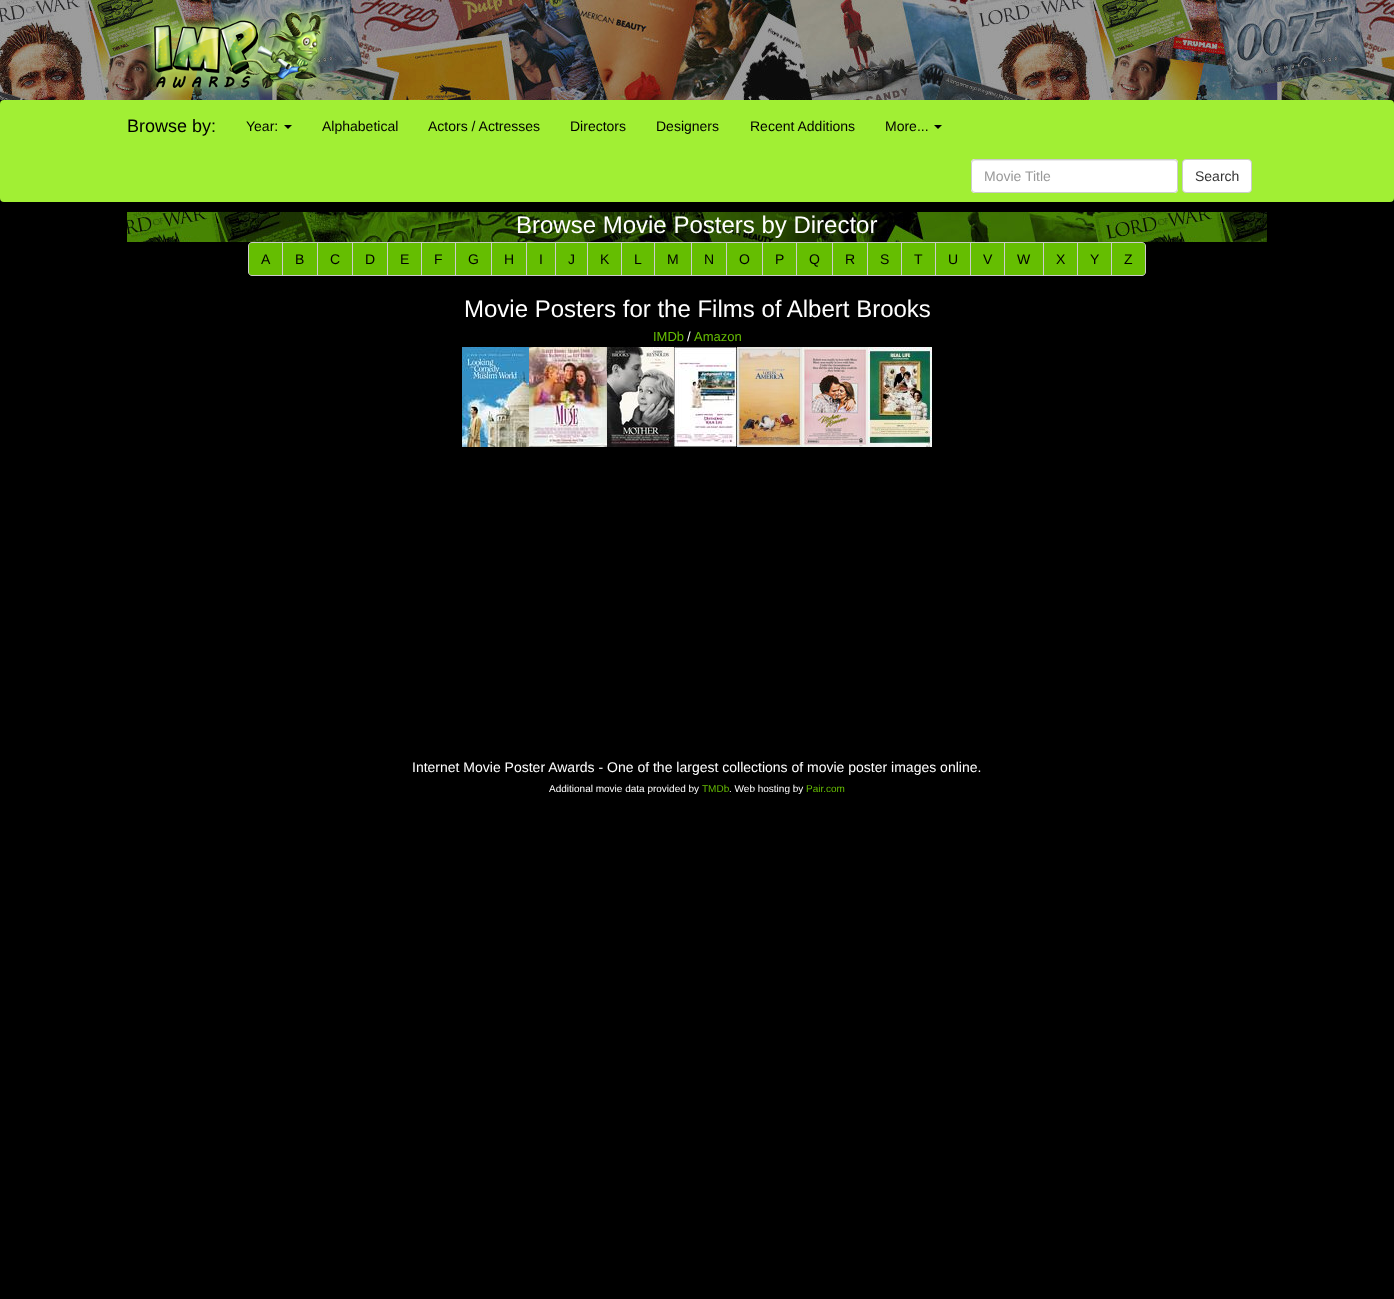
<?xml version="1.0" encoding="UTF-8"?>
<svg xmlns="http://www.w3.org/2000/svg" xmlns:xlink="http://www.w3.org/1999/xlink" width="1394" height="1299">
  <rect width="100%" height="100%" fill="#000000" />
  <image x="0" y="0" width="1394" height="100" xlink:href="image1.png" />
  <image x="143" y="3" width="188" height="95" xlink:href="image2.png" />
  <rect y="100" width="1394" height="102" rx="4" fill="#a1ef34" />
  <path d="M 284 125 h 8 l -4 4 z" fill="#000000" />
  <path d="M 934 125 h 8 l -4 4 z" fill="#000000" />
  <rect x="971" y="159" width="207" height="34" rx="4" fill="#ffffff" />
  <path d="M 975 161 h 199 c 2 0 3 1 3 3 c 0 -2 -1 -4 -3 -4 h -199 c -2 0 -3 2 -3 4 c 0 -2 1 -3 3 -3 z" fill="#ececec" />
  <rect x="971.5" y="159.5" width="206" height="33" rx="3.5" fill="none" stroke="#cccccc" />
  <rect x="1182.5" y="159.5" width="69" height="33" rx="3.5" fill="#ffffff" stroke="#cccccc" />
  <image x="127" y="212" width="1140" height="30" xlink:href="image3.png" />
  <path d="M 252 242.5 h 30.5 v 33 h -30.5 c -2 0 -3.5 -1.5 -3.5 -3.5 v -26 c 0 -2 1.5 -3.5 3.5 -3.5 z" fill="#65be01" stroke="#cccccc" />
  <rect x="282.5" y="242.5" width="35" height="33" fill="#65be01" stroke="#cccccc" />
  <rect x="317.5" y="242.5" width="35" height="33" fill="#65be01" stroke="#cccccc" />
  <rect x="352.5" y="242.5" width="35" height="33" fill="#65be01" stroke="#cccccc" />
  <rect x="387.5" y="242.5" width="34" height="33" fill="#65be01" stroke="#cccccc" />
  <rect x="421.5" y="242.5" width="34" height="33" fill="#65be01" stroke="#cccccc" />
  <rect x="455.5" y="242.5" width="36" height="33" fill="#65be01" stroke="#cccccc" />
  <rect x="491.5" y="242.5" width="35" height="33" fill="#65be01" stroke="#cccccc" />
  <rect x="526.5" y="242.5" width="29" height="33" fill="#65be01" stroke="#cccccc" />
  <rect x="555.5" y="242.5" width="32" height="33" fill="#65be01" stroke="#cccccc" />
  <rect x="587.5" y="242.5" width="34" height="33" fill="#65be01" stroke="#cccccc" />
  <rect x="621.5" y="242.5" width="33" height="33" fill="#65be01" stroke="#cccccc" />
  <rect x="654.5" y="242.5" width="37" height="33" fill="#65be01" stroke="#cccccc" />
  <rect x="691.5" y="242.5" width="35" height="33" fill="#65be01" stroke="#cccccc" />
  <rect x="726.5" y="242.5" width="36" height="33" fill="#65be01" stroke="#cccccc" />
  <rect x="762.5" y="242.5" width="34" height="33" fill="#65be01" stroke="#cccccc" />
  <rect x="796.5" y="242.5" width="36" height="33" fill="#65be01" stroke="#cccccc" />
  <rect x="832.5" y="242.5" width="35" height="33" fill="#65be01" stroke="#cccccc" />
  <rect x="867.5" y="242.5" width="34" height="33" fill="#65be01" stroke="#cccccc" />
  <rect x="901.5" y="242.5" width="34" height="33" fill="#65be01" stroke="#cccccc" />
  <rect x="935.5" y="242.5" width="35" height="33" fill="#65be01" stroke="#cccccc" />
  <rect x="970.5" y="242.5" width="34" height="33" fill="#65be01" stroke="#cccccc" />
  <rect x="1004.5" y="242.5" width="39" height="33" fill="#65be01" stroke="#cccccc" />
  <rect x="1043.5" y="242.5" width="34" height="33" fill="#65be01" stroke="#cccccc" />
  <rect x="1077.5" y="242.5" width="34" height="33" fill="#65be01" stroke="#cccccc" />
  <path d="M 1111.5 242.5 h 30.5 c 2 0 3.5 1.5 3.5 3.5 v 26 c 0 2 -1.5 3.5 -3.5 3.5 h -30.5 z" fill="#65be01" stroke="#cccccc" />
  <image x="462" y="347" width="67" height="100" xlink:href="image4.png" />
  <image x="529" y="347" width="78" height="100" xlink:href="image5.png" />
  <image x="607" y="347" width="67" height="100" xlink:href="image6.png" />
  <image x="674" y="347" width="63" height="100" xlink:href="image7.png" />
  <image x="737" y="347" width="65" height="100" xlink:href="image8.png" />
  <image x="802" y="347" width="66" height="100" xlink:href="image9.png" />
  <image x="868" y="347" width="64" height="100" xlink:href="image10.png" />
  <text x="127" y="132" style="font-family: Liberation Sans; font-size: 18px; fill: #000000">Browse by:</text>
  <text x="246" y="131" style="font-family: Liberation Sans; font-size: 14px; fill: #000000">Year:</text>
  <text x="322" y="131" style="font-family: Liberation Sans; font-size: 14px; fill: #000000">Alphabetical</text>
  <text x="428" y="131" style="font-family: Liberation Sans; font-size: 14px; fill: #000000">Actors / Actresses</text>
  <text x="570" y="131" style="font-family: Liberation Sans; font-size: 14px; fill: #000000">Directors</text>
  <text x="656" y="131" style="font-family: Liberation Sans; font-size: 14px; fill: #000000">Designers</text>
  <text x="750" y="131" style="font-family: Liberation Sans; font-size: 14px; fill: #000000">Recent Additions</text>
  <text x="885" y="131" style="font-family: Liberation Sans; font-size: 14px; fill: #000000">More...</text>
  <text x="984" y="181" style="font-family: Liberation Sans; font-size: 14px; fill: #999999">Movie Title</text>
  <text x="1195" y="181" style="font-family: Liberation Sans; font-size: 14px; fill: #333333">Search</text>
  <text x="516" y="233" style="font-family: Liberation Sans; font-size: 24px; fill: #ffffff">Browse Movie Posters by Director</text>
  <text x="261" y="264" style="font-family: Liberation Sans; font-size: 14px; fill: #000000">A</text>
  <text x="295" y="264" style="font-family: Liberation Sans; font-size: 14px; fill: #000000">B</text>
  <text x="330" y="264" style="font-family: Liberation Sans; font-size: 14px; fill: #000000">C</text>
  <text x="365" y="264" style="font-family: Liberation Sans; font-size: 14px; fill: #000000">D</text>
  <text x="400" y="264" style="font-family: Liberation Sans; font-size: 14px; fill: #000000">E</text>
  <text x="434" y="264" style="font-family: Liberation Sans; font-size: 14px; fill: #000000">F</text>
  <text x="468" y="264" style="font-family: Liberation Sans; font-size: 14px; fill: #000000">G</text>
  <text x="504" y="264" style="font-family: Liberation Sans; font-size: 14px; fill: #000000">H</text>
  <text x="539" y="264" style="font-family: Liberation Sans; font-size: 14px; fill: #000000">I</text>
  <text x="568" y="264" style="font-family: Liberation Sans; font-size: 14px; fill: #000000">J</text>
  <text x="600" y="264" style="font-family: Liberation Sans; font-size: 14px; fill: #000000">K</text>
  <text x="634" y="264" style="font-family: Liberation Sans; font-size: 14px; fill: #000000">L</text>
  <text x="667" y="264" style="font-family: Liberation Sans; font-size: 14px; fill: #000000">M</text>
  <text x="704" y="264" style="font-family: Liberation Sans; font-size: 14px; fill: #000000">N</text>
  <text x="739" y="264" style="font-family: Liberation Sans; font-size: 14px; fill: #000000">O</text>
  <text x="775" y="264" style="font-family: Liberation Sans; font-size: 14px; fill: #000000">P</text>
  <text x="809" y="264" style="font-family: Liberation Sans; font-size: 14px; fill: #000000">Q</text>
  <text x="845" y="264" style="font-family: Liberation Sans; font-size: 14px; fill: #000000">R</text>
  <text x="880" y="264" style="font-family: Liberation Sans; font-size: 14px; fill: #000000">S</text>
  <text x="914" y="264" style="font-family: Liberation Sans; font-size: 14px; fill: #000000">T</text>
  <text x="948" y="264" style="font-family: Liberation Sans; font-size: 14px; fill: #000000">U</text>
  <text x="983" y="264" style="font-family: Liberation Sans; font-size: 14px; fill: #000000">V</text>
  <text x="1017" y="264" style="font-family: Liberation Sans; font-size: 14px; fill: #000000">W</text>
  <text x="1056" y="264" style="font-family: Liberation Sans; font-size: 14px; fill: #000000">X</text>
  <text x="1090" y="264" style="font-family: Liberation Sans; font-size: 14px; fill: #000000">Y</text>
  <text x="1124" y="264" style="font-family: Liberation Sans; font-size: 14px; fill: #000000">Z</text>
  <text x="464" y="317" style="font-family: Liberation Sans; font-size: 24px; fill: #ffffff">Movie Posters for the Films of Albert Brooks</text>
  <text x="653" y="341" style="font-family: Liberation Sans; font-size: 13px; fill: #66bd04">IMDb</text>
  <text x="687" y="341" style="font-family: Liberation Sans; font-size: 13px; fill: #ffffff">/</text>
  <text x="694" y="341" style="font-family: Liberation Sans; font-size: 13px; fill: #66bd04">Amazon</text>
  <text x="412" y="772" style="font-family: Liberation Sans; font-size: 14px; fill: #ffffff">Internet Movie Poster Awards - One of the largest collections of movie poster images online.</text>
  <text x="549" y="792" style="font-family: Liberation Sans; font-size: 10px; fill: #ffffff">Additional movie data provided by</text>
  <text x="702" y="792" style="font-family: Liberation Sans; font-size: 10px; fill: #66bd04">TMDb</text>
  <text x="729" y="792" style="font-family: Liberation Sans; font-size: 10px; fill: #ffffff">. Web hosting by</text>
  <text x="806" y="792" style="font-family: Liberation Sans; font-size: 10px; fill: #66bd04">Pair.com</text>
</svg>
